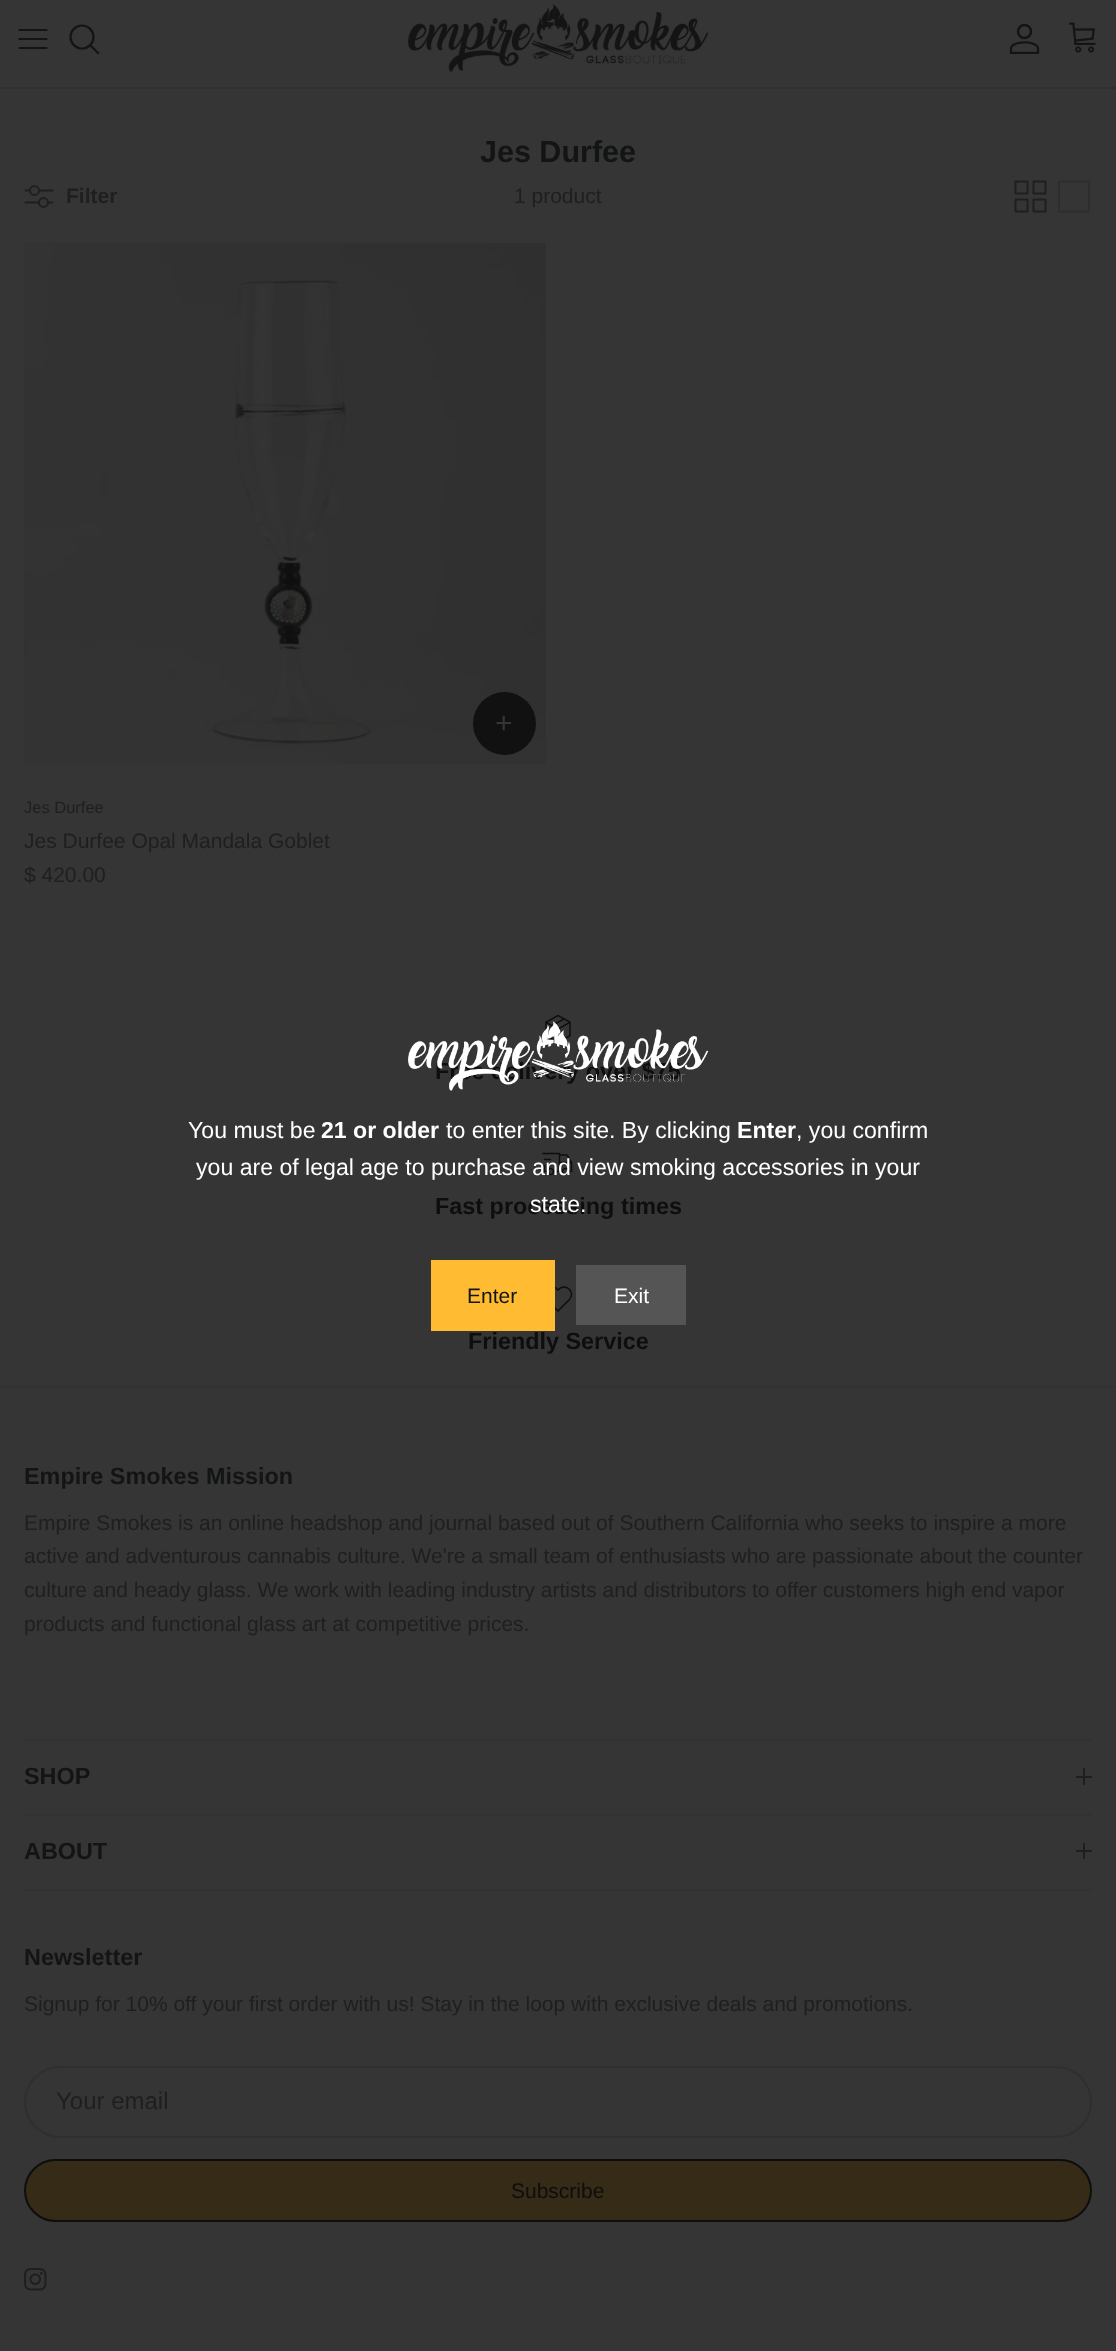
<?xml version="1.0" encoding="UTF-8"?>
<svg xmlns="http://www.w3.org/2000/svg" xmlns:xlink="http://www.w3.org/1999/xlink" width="1116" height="2351">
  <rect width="100%" height="100%" fill="#353535" />
  <rect y="87" width="1116" height="2" fill="#303030" />
  <path d="M 19.5 39 h 27 m -27 -9 h 27 m -27 18 h 27" fill="none" stroke="#131414" stroke-width="2.2" stroke-linecap="round" stroke-linejoin="round" />
  <circle cx="82" cy="37" r="11.5" fill="none" stroke="#131414" stroke-width="2.2" />
  <path d="M 91.5 46.5 l 6.5 6.5" fill="none" stroke="#131414" stroke-width="2.2" stroke-linecap="square" />
  <image x="408" y="4" width="300" height="68" xlink:href="image1.png" />
  <image x="1009" y="23" width="31" height="31" xlink:href="image2.png" />
  <image x="1069" y="22" width="27" height="31" xlink:href="image3.png" />
  <path d="M 25.5 190.5 h 27 m -27 12 h 27" fill="none" stroke="#1f1f20" stroke-width="1.9" stroke-linecap="round" stroke-linejoin="round" />
  <circle cx="34.5" cy="190.5" r="4.5" fill="#353535" stroke="#1f1f20" stroke-width="1.9" />
  <circle cx="43.5" cy="202.5" r="4.5" fill="#353535" stroke="#1f1f20" stroke-width="1.9" />
  <image x="1014" y="180" width="33" height="33" xlink:href="image4.png" />
  <path d="M 1059 181.5 h 30 v 30 h -30 v -30" fill="none" stroke="#2e2e2f" stroke-width="2" stroke-linecap="round" stroke-linejoin="round" />
  <image x="24" y="242" width="522" height="523" xlink:href="image5.png" />
  <circle cx="504.5" cy="723.5" r="31.5" fill="#111111" />
  <image x="545" y="1014" width="26" height="28" xlink:href="image6.png" />
  <image x="542" y="1152" width="31" height="24" xlink:href="image7.png" />
  <path d="M 569 1300 l -11 11 l -12.5 -13 c -4.5 -8 7 -15.5 12.5 -8 c 6.5 -8.5 19 2.5 11 10" fill="none" stroke="#0e0e0e" stroke-width="1.5" stroke-linecap="round" stroke-linejoin="round" />
  <rect y="1386" width="1116" height="2" fill="#323232" />
  <rect x="24" y="1739" width="1068" height="2" fill="#313232" />
  <rect x="1083" y="1768" width="2" height="17" fill="#1f1f20" />
  <rect x="1076" y="1776" width="16" height="2" fill="#1f1f20" />
  <rect x="24" y="1814" width="1068" height="2" fill="#313232" />
  <rect x="24" y="1889" width="1068" height="2" fill="#313232" />
  <rect x="1083" y="1843" width="2" height="16" fill="#1f1f20" />
  <rect x="1076" y="1850" width="16" height="2" fill="#1f1f20" />
  <rect x="25" y="2067" width="1066" height="70" rx="35" fill="none" stroke="#2f2f30" stroke-width="2" />
  <rect x="25" y="2160" width="1066" height="61" rx="30.5" fill="#352b16" stroke="#0e0e0e" stroke-width="2" />
  <image x="24" y="2268" width="23" height="23" xlink:href="image8.png" />
  <rect x="431" y="1260" width="124" height="71" fill="#ffbb31" />
  <rect x="576" y="1265" width="110" height="60" fill="#555555" />
  <text x="480" y="162" style="font-family: Liberation Sans; font-size: 30.5px; font-weight: bold; fill: #131414">Jes Durfee</text>
  <text x="66" y="203" style="font-family: Liberation Sans; font-size: 21px; font-weight: bold; fill: #1f1f20">Filter</text>
  <text x="514" y="203" style="font-family: Liberation Sans; font-size: 21px; fill: #1f1f20">1 product</text>
  <text x="495" y="733" style="font-family: Liberation Sans; font-size: 30px; fill: #353535">+</text>
  <text x="24" y="813" style="font-family: Liberation Sans; font-size: 16.5px; fill: #1f1f20">Jes Durfee</text>
  <text x="24" y="848" style="font-family: Liberation Sans; font-size: 21px; fill: #1f1f20">Jes Durfee Opal Mandala Goblet</text>
  <text x="24" y="882" style="font-family: Liberation Sans; font-size: 21px; fill: #1f1f20">$ 420.00</text>
  <text x="435" y="1079" style="font-family: Liberation Sans; font-size: 23.4px; font-weight: bold; fill: #0e0e0e">Free delivery over $75</text>
  <text x="435" y="1214" style="font-family: Liberation Sans; font-size: 23.4px; font-weight: bold; fill: #0e0e0e">Fast processing times</text>
  <text x="468" y="1349" style="font-family: Liberation Sans; font-size: 23.4px; font-weight: bold; fill: #0e0e0e">Friendly Service</text>
  <text x="24" y="1484" style="font-family: Liberation Sans; font-size: 23.4px; font-weight: bold; fill: #131414">Empire Smokes Mission</text>
  <text x="24" y="1530" style="font-family: Liberation Sans; font-size: 21px; fill: #1f1f20">Empire Smokes is an online headshop and journal based out of Southern California who seeks to inspire a more</text>
  <text x="24" y="1563" style="font-family: Liberation Sans; font-size: 21px; fill: #1f1f20">active and adventurous cannabis culture. We're a small team of enthusiasts who are passionate about the counter</text>
  <text x="24" y="1597" style="font-family: Liberation Sans; font-size: 21px; fill: #1f1f20">culture and heady glass. We work with leading industry artists and distributors to offer customers high end vapor</text>
  <text x="24" y="1631" style="font-family: Liberation Sans; font-size: 21px; fill: #1f1f20">products and functional glass art at competitive prices.</text>
  <text x="24" y="1784" style="font-family: Liberation Sans; font-size: 23.4px; font-weight: bold; fill: #131414">SHOP</text>
  <text x="24" y="1859" style="font-family: Liberation Sans; font-size: 23.4px; font-weight: bold; fill: #131414">ABOUT</text>
  <text x="24" y="1965" style="font-family: Liberation Sans; font-size: 23.4px; font-weight: bold; fill: #131414">Newsletter</text>
  <text x="24" y="2011" style="font-family: Liberation Sans; font-size: 21px; fill: #1f1f20">Signup for 10% off your first order with us! Stay in the loop with exclusive deals and promotions.</text>
  <text x="56" y="2109" style="font-family: Liberation Sans; font-size: 24px; fill: #1f1f20">Your email</text>
  <text x="511" y="2198" style="font-family: Liberation Sans; font-size: 21px; fill: #0e0e0e">Subscribe</text>
  <image x="408" y="1021" width="300" height="70" xlink:href="image9.png" />
  <text x="188" y="1138" style="font-family: Liberation Sans; font-size: 23.1px; fill: #ffffff">You must be</text>
  <text x="321" y="1138" style="font-family: Liberation Sans; font-size: 23.1px; font-weight: bold; fill: #ffffff">21 or older</text>
  <text x="446" y="1138" style="font-family: Liberation Sans; font-size: 23.1px; fill: #ffffff">to enter this site. By clicking</text>
  <text x="737" y="1138" style="font-family: Liberation Sans; font-size: 23.1px; font-weight: bold; fill: #ffffff">Enter</text>
  <text x="796" y="1138" style="font-family: Liberation Sans; font-size: 23.1px; fill: #ffffff">, you confirm</text>
  <text x="196" y="1175" style="font-family: Liberation Sans; font-size: 23.1px; fill: #ffffff">you are of legal age to purchase and view smoking accessories in your</text>
  <text x="530" y="1212" style="font-family: Liberation Sans; font-size: 23.1px; fill: #ffffff">state.</text>
  <text x="467" y="1303" style="font-family: Liberation Sans; font-size: 21px; fill: #131414">Enter</text>
  <text x="614" y="1303" style="font-family: Liberation Sans; font-size: 21px; fill: #ffffff">Exit</text>
</svg>
